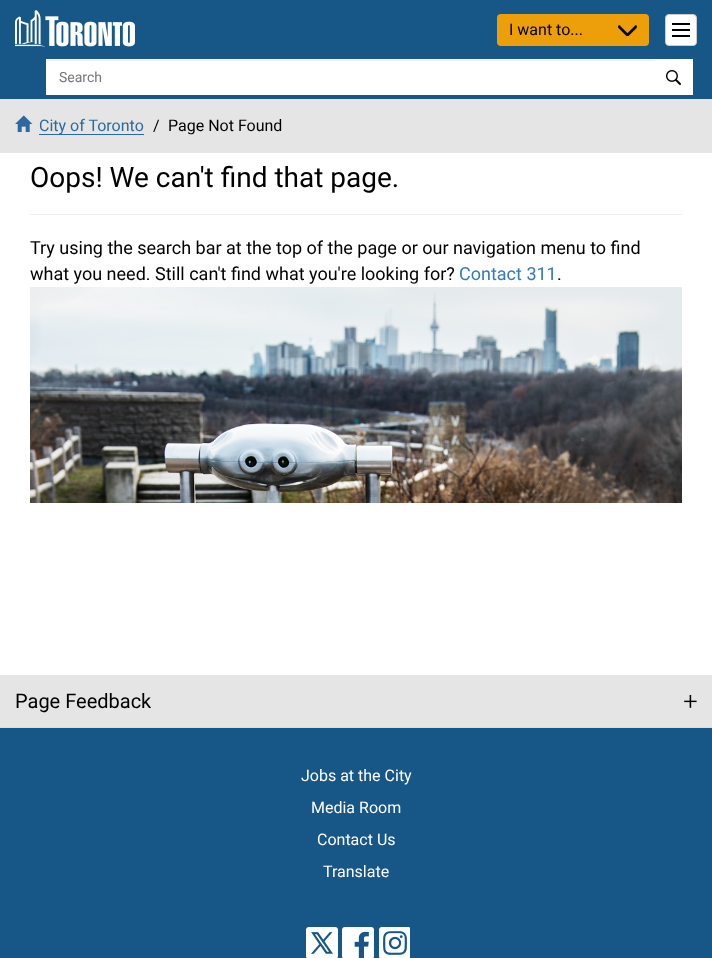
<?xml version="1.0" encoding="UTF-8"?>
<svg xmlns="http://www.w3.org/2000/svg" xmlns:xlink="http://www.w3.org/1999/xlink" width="712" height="958">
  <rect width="100%" height="100%" fill="#ffffff" />
  <rect width="712" height="99" fill="#165788" />
  <image x="15" y="10" width="120" height="37" xlink:href="image1.png" />
  <rect x="497" y="14" width="152" height="32" rx="4" fill="#ec9f09" />
  <image x="618" y="25" width="19" height="11" xlink:href="image2.png" />
  <rect x="665.5" y="14.5" width="31" height="31" rx="3.5" fill="#ffffff" stroke="#cccccc" />
  <rect x="672" y="29" width="18" height="2" fill="#000000" />
  <rect x="672" y="23" width="18" height="2" fill="#000000" />
  <rect x="672" y="35" width="18" height="2" fill="#000000" />
  <rect x="46" y="59" width="647" height="36" fill="#ffffff" />
  <image x="666" y="70" width="15" height="15" xlink:href="image3.png" />
  <rect x="47" y="60" width="608" height="1" fill="#ececec" />
  <rect y="99" width="712" height="54" fill="#e5e5e5" />
  <image x="15" y="115" width="18" height="17" xlink:href="image4.png" />
  <rect x="39" y="134" width="105" height="1" fill="#2d699e" />
  <rect x="30" y="214" width="652" height="1" fill="#eeeeee" />
  <image x="30" y="287" width="652" height="216" xlink:href="image5.png" />
  <rect y="728" width="712" height="230" fill="#165788" />
  <rect y="675" width="712" height="52" fill="#e5e5e5" />
  <rect y="727" width="712" height="1" fill="#dddddd" />
  <image x="684" y="695" width="13" height="13" xlink:href="image6.png" />
  <image x="306" y="927" width="32" height="31" xlink:href="image7.png" />
  <image x="342" y="927" width="32" height="31" xlink:href="image8.png" />
  <image x="379" y="927" width="31" height="31" xlink:href="image9.png" />
  <text x="509" y="35" style="font-family: Roboto; font-size: 16px; fill: #000000">I want to...</text>
  <text x="59" y="82" style="font-family: Roboto; font-size: 14px; fill: #767676">Search</text>
  <text x="39" y="131" style="font-family: Roboto; font-size: 16px; fill: #2d699e">City of Toronto</text>
  <text x="153" y="131" style="font-family: Roboto; font-size: 16px; fill: #000000">/</text>
  <text x="168" y="131" style="font-family: Roboto; font-size: 16px; fill: #000000">Page Not Found</text>
  <text x="30" y="187" style="font-family: Roboto; font-size: 28px; fill: #000000">Oops! We can't find that page.</text>
  <text x="30" y="254" style="font-family: Roboto; font-size: 18px; fill: #000000">Try using the search bar at the top of the page or our navigation menu to find</text>
  <text x="30" y="280" style="font-family: Roboto; font-size: 18px; fill: #000000">what you need. Still can't find what you're looking for?</text>
  <text x="459" y="280" style="font-family: Roboto; font-size: 18px; fill: #337ab7">Contact 311</text>
  <text x="557" y="280" style="font-family: Roboto; font-size: 18px; fill: #000000">.</text>
  <text x="15" y="708" style="font-family: Roboto; font-size: 20px; fill: #000000">Page Feedback</text>
  <text x="301" y="781" style="font-family: Roboto; font-size: 16px; fill: #ffffff">Jobs at the City</text>
  <text x="311" y="813" style="font-family: Roboto; font-size: 16px; fill: #ffffff">Media Room</text>
  <text x="317" y="845" style="font-family: Roboto; font-size: 16px; fill: #ffffff">Contact Us</text>
  <text x="323" y="877" style="font-family: Roboto; font-size: 16px; fill: #ffffff">Translate</text>
</svg>
